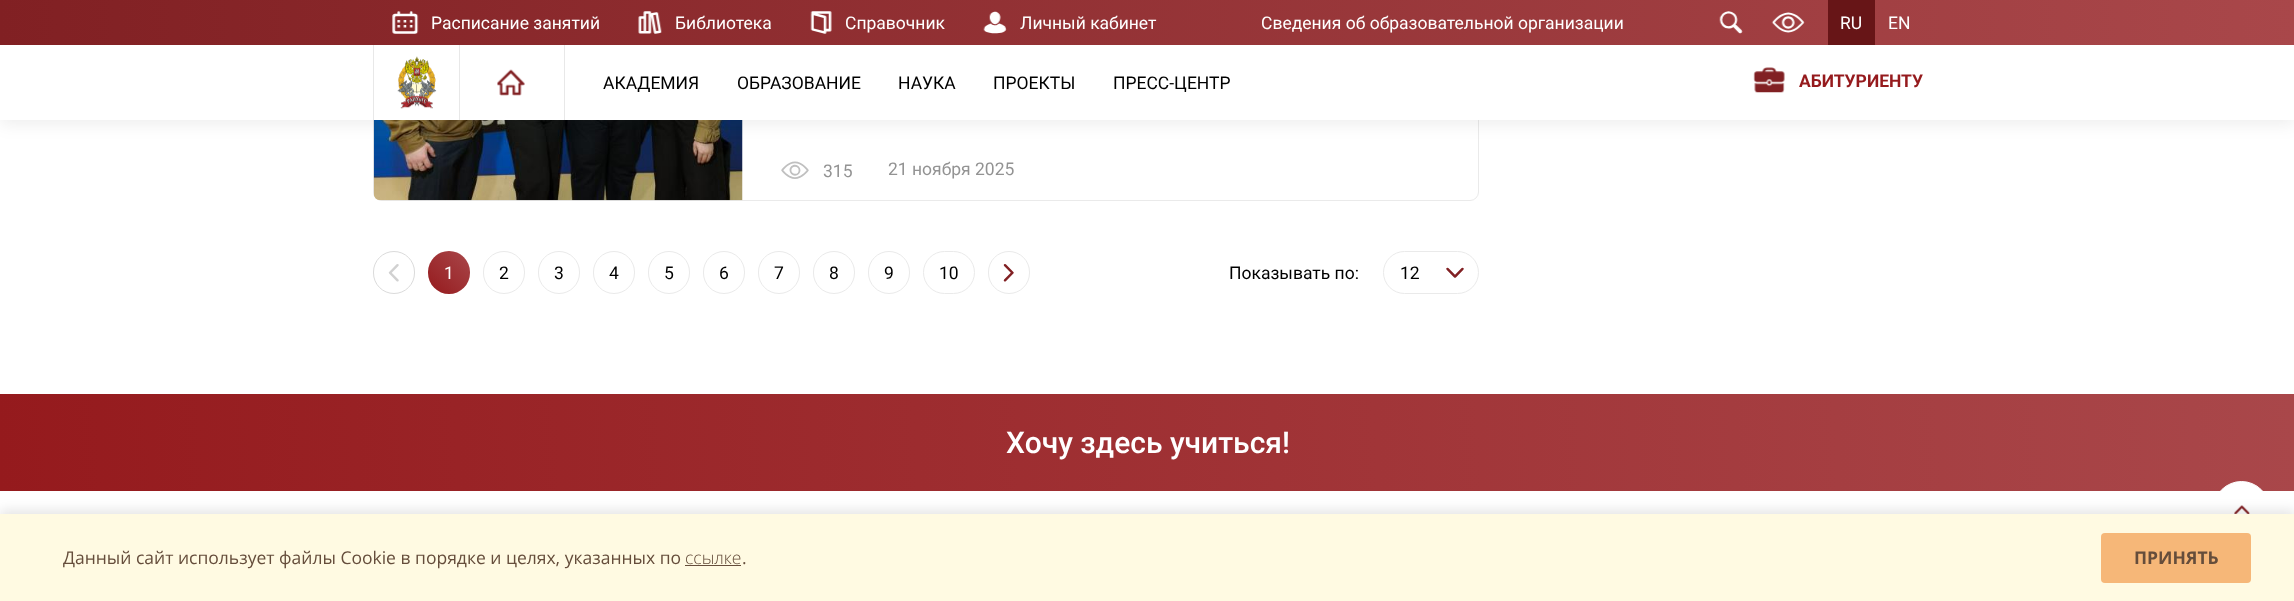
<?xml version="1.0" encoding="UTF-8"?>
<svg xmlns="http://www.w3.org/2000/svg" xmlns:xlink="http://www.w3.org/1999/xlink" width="2294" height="601">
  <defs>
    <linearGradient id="g1" gradientUnits="userSpaceOnUse" x1="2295" y1="2.5" x2="0" y2="43"><stop offset="0" stop-color="#a9474a" /><stop offset="1" stop-color="#812023" /></linearGradient>
    <linearGradient id="g2" gradientUnits="userSpaceOnUse" x1="470" y1="251" x2="428" y2="294"><stop offset="0" stop-color="#a9474a" /><stop offset="1" stop-color="#951a1d" /></linearGradient>
    <linearGradient id="g3" gradientUnits="userSpaceOnUse" x1="2294" y1="382" x2="0.6" y2="503"><stop offset="0" stop-color="#a9474a" /><stop offset="1" stop-color="#951a1d" /></linearGradient>
  </defs>
  <rect width="100%" height="100%" fill="#ffffff" />
  <rect x="373.5" y="-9.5" width="1105" height="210" rx="8.5" fill="none" stroke="#eaeaea" />
  <image x="373" y="120" width="370" height="81" xlink:href="image10.png" />
  <rect y="48" width="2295" height="75" fill="#000000" fill-opacity="0.08" filter="blur(9px)" />
  <rect width="2294" height="45" fill="url(#g1)" />
  <image x="392" y="11" width="27" height="23" xlink:href="image1.png" />
  <image x="638" y="11" width="24" height="23" xlink:href="image2.png" />
  <image x="810" y="11" width="22" height="23" xlink:href="image3.png" />
  <image x="983" y="11" width="24" height="23" xlink:href="image4.png" />
  <image x="1719" y="11" width="24" height="23" xlink:href="image5.png" />
  <image x="1771" y="12" width="34" height="21" xlink:href="image6.png" />
  <rect x="1828" width="47" height="45" fill="#671517" />
  <rect y="45" width="2294" height="75" fill="#ffffff" />
  <rect x="459" y="45" width="1" height="75" fill="#e8e8e8" />
  <rect x="373" y="45" width="1" height="75" fill="#e8e8e8" />
  <image x="397" y="56" width="40" height="53" xlink:href="image7.png" />
  <image x="497" y="69" width="28" height="27" xlink:href="image8.png" />
  <rect x="564" y="45" width="1" height="75" fill="#e8e8e8" />
  <image x="1753" y="67" width="32" height="26" xlink:href="image9.png" />
  <image x="781" y="161" width="28" height="18" xlink:href="image11.png" />
  <rect x="373.5" y="251.5" width="41" height="42" rx="20.5" fill="none" stroke="#dbdbdb" />
  <image x="388" y="264" width="11" height="18" xlink:href="image12.png" />
  <rect x="428" y="251" width="42" height="43" rx="21" fill="url(#g2)" />
  <rect x="483.5" y="251.5" width="41" height="42" rx="20.5" fill="none" stroke="#eaeaea" />
  <rect x="538.5" y="251.5" width="41" height="42" rx="20.5" fill="none" stroke="#eaeaea" />
  <rect x="593.5" y="251.5" width="41" height="42" rx="20.5" fill="none" stroke="#eaeaea" />
  <rect x="648.5" y="251.5" width="41" height="42" rx="20.5" fill="none" stroke="#eaeaea" />
  <rect x="703.5" y="251.5" width="41" height="42" rx="20.5" fill="none" stroke="#eaeaea" />
  <rect x="758.5" y="251.5" width="41" height="42" rx="20.5" fill="none" stroke="#eaeaea" />
  <rect x="813.5" y="251.5" width="41" height="42" rx="20.5" fill="none" stroke="#eaeaea" />
  <rect x="868.5" y="251.5" width="41" height="42" rx="20.5" fill="none" stroke="#eaeaea" />
  <rect x="923.5" y="251.5" width="51" height="42" rx="21" fill="none" stroke="#eaeaea" />
  <rect x="988.5" y="251.5" width="41" height="42" rx="20.5" fill="none" stroke="#eaeaea" />
  <image x="1003" y="264" width="11" height="18" xlink:href="image13.png" />
  <rect x="1383.5" y="251.5" width="95" height="42" rx="21" fill="none" stroke="#eaeaea" />
  <image x="1446" y="267" width="18" height="11" xlink:href="image14.png" />
  <rect y="394" width="2294" height="97" fill="url(#g3)" />
  <rect x="2213.5" y="481.5" width="56" height="57" rx="28" fill="#ffffff" stroke="#ffffff" />
  <image x="2234" y="505" width="16" height="9" xlink:href="image15.png" />
  <rect y="510" width="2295" height="88" fill="#000000" fill-opacity="0.1" filter="blur(6px)" />
  <rect y="514" width="2294" height="87" fill="#fffae2" />
  <rect x="685" y="565" width="56" height="1" fill="#654d3b" />
  <rect x="2101" y="533" width="150" height="50" rx="4" fill="#f6b778" />
  <text x="431" y="29" style="font-family: Roboto; font-size: 17.5px; fill: #ffffff">Расписание занятий</text>
  <text x="675" y="29" style="font-family: Roboto; font-size: 17.5px; fill: #ffffff">Библиотека</text>
  <text x="845" y="29" style="font-family: Roboto; font-size: 17.5px; fill: #ffffff">Справочник</text>
  <text x="1020" y="29" style="font-family: Roboto; font-size: 17.5px; fill: #ffffff">Личный кабинет</text>
  <text x="1261" y="29" style="font-family: Roboto; font-size: 17.5px; fill: #ffffff">Сведения об образовательной организации</text>
  <text x="1840" y="29" style="font-family: Roboto; font-size: 17.5px; fill: #ffffff">RU</text>
  <text x="1888" y="29" style="font-family: Roboto; font-size: 17.5px; fill: #ffffff">EN</text>
  <text x="603" y="89" style="font-family: Roboto; font-size: 17.5px; fill: #000000">АКАДЕМИЯ</text>
  <text x="737" y="89" style="font-family: Roboto; font-size: 17.5px; fill: #000000">ОБРАЗОВАНИЕ</text>
  <text x="898" y="89" style="font-family: Roboto; font-size: 17.5px; fill: #000000">НАУКА</text>
  <text x="993" y="89" style="font-family: Roboto; font-size: 17.5px; fill: #000000">ПРОЕКТЫ</text>
  <text x="1113" y="89" style="font-family: Roboto; font-size: 17.5px; fill: #000000">ПРЕСС-ЦЕНТР</text>
  <text x="1799" y="87" style="font-family: Roboto; font-size: 17.5px; font-weight: bold; fill: #951a1d">АБИТУРИЕНТУ</text>
  <text x="823" y="177" style="font-family: Roboto; font-size: 17.5px; fill: #939393">315</text>
  <text x="888" y="175" style="font-family: Roboto; font-size: 17.5px; fill: #939393">21 ноября 2025</text>
  <text x="444" y="279" style="font-family: Roboto; font-size: 17.5px; fill: #ffffff">1</text>
  <text x="499" y="279" style="font-family: Roboto; font-size: 17.5px; fill: #000000">2</text>
  <text x="554" y="279" style="font-family: Roboto; font-size: 17.5px; fill: #000000">3</text>
  <text x="609" y="279" style="font-family: Roboto; font-size: 17.5px; fill: #000000">4</text>
  <text x="664" y="279" style="font-family: Roboto; font-size: 17.5px; fill: #000000">5</text>
  <text x="719" y="279" style="font-family: Roboto; font-size: 17.5px; fill: #000000">6</text>
  <text x="774" y="279" style="font-family: Roboto; font-size: 17.5px; fill: #000000">7</text>
  <text x="829" y="279" style="font-family: Roboto; font-size: 17.5px; fill: #000000">8</text>
  <text x="884" y="279" style="font-family: Roboto; font-size: 17.5px; fill: #000000">9</text>
  <text x="939" y="279" style="font-family: Roboto; font-size: 17.5px; fill: #000000">10</text>
  <text x="1229" y="279" style="font-family: Roboto; font-size: 17.5px; fill: #000000">Показывать по:</text>
  <text x="1400" y="279" style="font-family: Roboto; font-size: 17.5px; fill: #000000">12</text>
  <text x="1006" y="453" style="font-family: Roboto; font-size: 30px; font-weight: 500; fill: #ffffff">Хочу здесь учиться!</text>
  <text x="63" y="564" style="font-family: Open Sans; font-size: 17.5px; fill: #654d3b">Данный сайт использует файлы Cookie в порядке и целях, указанных по</text>
  <text x="685" y="564" style="font-family: Open Sans; font-size: 17.5px; font-weight: 300; fill: #654d3b">ссылке</text>
  <text x="742" y="564" style="font-family: Open Sans; font-size: 17.5px; fill: #654d3b">.</text>
  <text x="2134" y="564" style="font-family: Open Sans; font-size: 17.5px; font-weight: bold; fill: #654d3b">ПРИНЯТЬ</text>
</svg>
